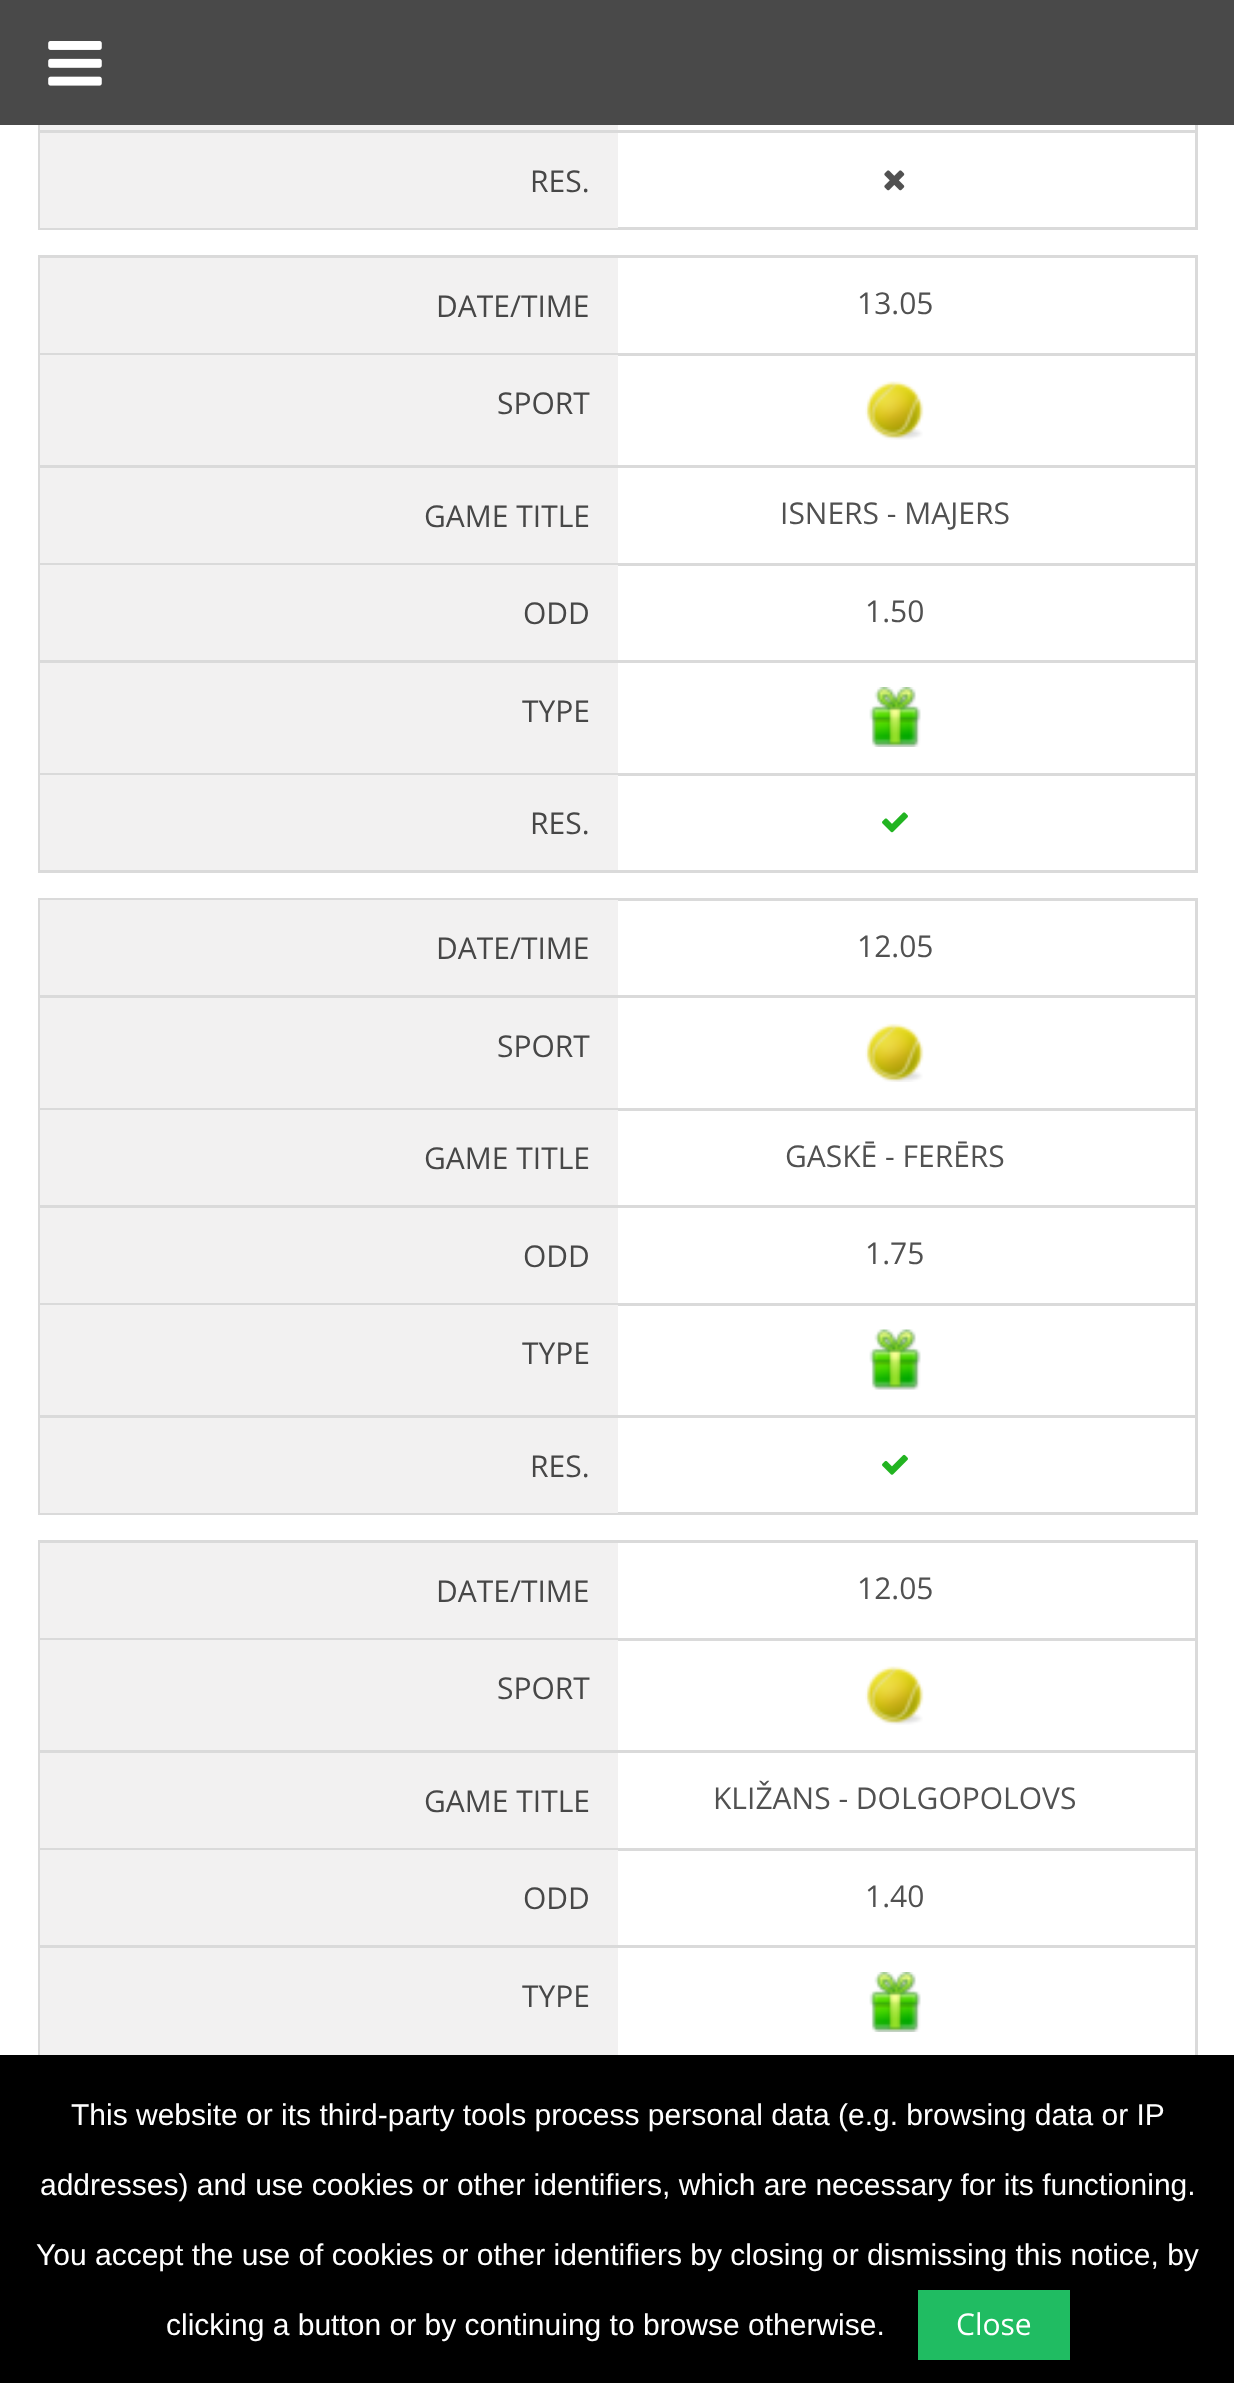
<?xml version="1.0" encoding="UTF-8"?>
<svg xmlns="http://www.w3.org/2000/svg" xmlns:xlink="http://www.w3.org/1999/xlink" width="1234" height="2383">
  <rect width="100%" height="100%" fill="#ffffff" />
  <rect width="1234" height="125" fill="#494949" />
  <image x="48" y="41" width="54" height="45" xlink:href="image1.png" />
  <rect x="1195" y="125" width="3" height="5" fill="#dadada" />
  <rect x="38" y="125" width="2" height="5" fill="#dadada" />
  <rect x="40" y="125" width="578" height="5" fill="#f2f1f1" />
  <rect x="39.5" y="131.5" width="1157" height="97" fill="none" stroke="#dadada" stroke-width="3" />
  <rect x="40" y="133" width="578" height="95" fill="#f2f1f1" />
  <image x="884" y="170" width="21" height="21" xlink:href="image2.png" />
  <rect x="38" y="255" width="1160" height="3" fill="#dadada" />
  <rect x="1195" y="255" width="3" height="98" fill="#dadada" />
  <rect x="38" y="255" width="3" height="98" fill="#dadada" />
  <rect x="40" y="258" width="578" height="95" fill="#f2f1f1" />
  <rect x="38" y="353" width="1160" height="3" fill="#dadada" />
  <rect x="1195" y="353" width="3" height="112" fill="#dadada" />
  <rect x="38" y="353" width="3" height="112" fill="#dadada" />
  <rect x="40" y="355" width="578" height="110" fill="#f2f1f1" />
  <image x="865" y="381" width="59" height="59" xlink:href="image3.png" />
  <rect x="38" y="465" width="1160" height="3" fill="#dadada" />
  <rect x="1195" y="465" width="3" height="98" fill="#dadada" />
  <rect x="38" y="465" width="3" height="98" fill="#dadada" />
  <rect x="40" y="468" width="578" height="95" fill="#f2f1f1" />
  <rect x="38" y="563" width="1160" height="3" fill="#dadada" />
  <rect x="1195" y="563" width="3" height="97" fill="#dadada" />
  <rect x="38" y="563" width="3" height="97" fill="#dadada" />
  <rect x="40" y="565" width="578" height="95" fill="#f2f1f1" />
  <rect x="38" y="660" width="1160" height="3" fill="#dadada" />
  <rect x="1195" y="660" width="3" height="113" fill="#dadada" />
  <rect x="38" y="660" width="3" height="113" fill="#dadada" />
  <rect x="40" y="663" width="578" height="110" fill="#f2f1f1" />
  <image x="869" y="687" width="52" height="60" xlink:href="image4.png" />
  <rect x="39.5" y="774.5" width="1157" height="97" fill="none" stroke="#dadada" stroke-width="3" />
  <rect x="40" y="775" width="578" height="95" fill="#f2f1f1" />
  <image x="882" y="812" width="26" height="21" xlink:href="image5.png" />
  <rect x="38" y="898" width="1160" height="3" fill="#dadada" />
  <rect x="1195" y="898" width="3" height="97" fill="#dadada" />
  <rect x="38" y="898" width="3" height="97" fill="#dadada" />
  <rect x="40" y="900" width="578" height="95" fill="#f2f1f1" />
  <rect x="38" y="995" width="1160" height="3" fill="#dadada" />
  <rect x="1195" y="995" width="3" height="113" fill="#dadada" />
  <rect x="38" y="995" width="3" height="113" fill="#dadada" />
  <rect x="40" y="998" width="578" height="110" fill="#f2f1f1" />
  <image x="865" y="1023" width="59" height="59" xlink:href="image6.png" />
  <rect x="38" y="1108" width="1160" height="3" fill="#dadada" />
  <rect x="1195" y="1108" width="3" height="97" fill="#dadada" />
  <rect x="38" y="1108" width="3" height="97" fill="#dadada" />
  <rect x="40" y="1110" width="578" height="95" fill="#f2f1f1" />
  <rect x="38" y="1205" width="1160" height="3" fill="#dadada" />
  <rect x="1195" y="1205" width="3" height="98" fill="#dadada" />
  <rect x="38" y="1205" width="3" height="98" fill="#dadada" />
  <rect x="40" y="1208" width="578" height="95" fill="#f2f1f1" />
  <rect x="38" y="1303" width="1160" height="3" fill="#dadada" />
  <rect x="1195" y="1303" width="3" height="112" fill="#dadada" />
  <rect x="38" y="1303" width="3" height="112" fill="#dadada" />
  <rect x="40" y="1305" width="578" height="110" fill="#f2f1f1" />
  <image x="869" y="1329" width="52" height="61" xlink:href="image7.png" />
  <rect x="39.5" y="1416.5" width="1157" height="97" fill="none" stroke="#dadada" stroke-width="3" />
  <rect x="40" y="1418" width="578" height="95" fill="#f2f1f1" />
  <image x="882" y="1454" width="26" height="21" xlink:href="image8.png" />
  <rect x="38" y="1540" width="1160" height="3" fill="#dadada" />
  <rect x="1195" y="1540" width="3" height="98" fill="#dadada" />
  <rect x="38" y="1540" width="3" height="98" fill="#dadada" />
  <rect x="40" y="1543" width="578" height="95" fill="#f2f1f1" />
  <rect x="38" y="1638" width="1160" height="3" fill="#dadada" />
  <rect x="1195" y="1638" width="3" height="112" fill="#dadada" />
  <rect x="38" y="1638" width="3" height="112" fill="#dadada" />
  <rect x="40" y="1640" width="578" height="110" fill="#f2f1f1" />
  <image x="865" y="1666" width="59" height="59" xlink:href="image3.png" />
  <rect x="38" y="1750" width="1160" height="3" fill="#dadada" />
  <rect x="1195" y="1750" width="3" height="98" fill="#dadada" />
  <rect x="38" y="1750" width="3" height="98" fill="#dadada" />
  <rect x="40" y="1753" width="578" height="95" fill="#f2f1f1" />
  <rect x="38" y="1848" width="1160" height="3" fill="#dadada" />
  <rect x="1195" y="1848" width="3" height="97" fill="#dadada" />
  <rect x="38" y="1848" width="3" height="97" fill="#dadada" />
  <rect x="40" y="1850" width="578" height="95" fill="#f2f1f1" />
  <rect x="38" y="1945" width="1160" height="3" fill="#dadada" />
  <rect x="1195" y="1945" width="3" height="113" fill="#dadada" />
  <rect x="38" y="1945" width="3" height="113" fill="#dadada" />
  <rect x="40" y="1948" width="578" height="107" fill="#f2f1f1" />
  <image x="869" y="1972" width="52" height="60" xlink:href="image4.png" />
  <rect y="2055" width="1234" height="328" fill="#000000" />
  <rect x="918" y="2290" width="152" height="70" fill="#20bc62" />
  <text x="530" y="192" style="font-family: Open Sans; font-size: 30px; fill: #474747">RES.</text>
  <text x="436" y="317" style="font-family: Open Sans; font-size: 30px; fill: #474747">DATE/TIME</text>
  <text x="857" y="314" style="font-family: Open Sans; font-size: 30px; fill: #515151">13.05</text>
  <text x="497" y="414" style="font-family: Open Sans; font-size: 30px; fill: #474747">SPORT</text>
  <text x="424" y="527" style="font-family: Open Sans; font-size: 30px; fill: #474747">GAME TITLE</text>
  <text x="780" y="524" style="font-family: Open Sans; font-size: 30px; fill: #515151">ISNERS - MAJERS</text>
  <text x="523" y="624" style="font-family: Open Sans; font-size: 30px; fill: #474747">ODD</text>
  <text x="865" y="622" style="font-family: Open Sans; font-size: 30px; fill: #515151">1.50</text>
  <text x="522" y="722" style="font-family: Open Sans; font-size: 30px; fill: #474747">TYPE</text>
  <text x="530" y="834" style="font-family: Open Sans; font-size: 30px; fill: #474747">RES.</text>
  <text x="436" y="959" style="font-family: Open Sans; font-size: 30px; fill: #474747">DATE/TIME</text>
  <text x="857" y="957" style="font-family: Open Sans; font-size: 30px; fill: #515151">12.05</text>
  <text x="497" y="1057" style="font-family: Open Sans; font-size: 30px; fill: #474747">SPORT</text>
  <text x="424" y="1169" style="font-family: Open Sans; font-size: 30px; fill: #474747">GAME TITLE</text>
  <text x="785" y="1167" style="font-family: Open Sans; font-size: 30px; fill: #515151">GASKĒ - FERĒRS</text>
  <text x="523" y="1267" style="font-family: Open Sans; font-size: 30px; fill: #474747">ODD</text>
  <text x="865" y="1264" style="font-family: Open Sans; font-size: 30px; fill: #515151">1.75</text>
  <text x="522" y="1364" style="font-family: Open Sans; font-size: 30px; fill: #474747">TYPE</text>
  <text x="530" y="1477" style="font-family: Open Sans; font-size: 30px; fill: #474747">RES.</text>
  <text x="436" y="1602" style="font-family: Open Sans; font-size: 30px; fill: #474747">DATE/TIME</text>
  <text x="857" y="1599" style="font-family: Open Sans; font-size: 30px; fill: #515151">12.05</text>
  <text x="497" y="1699" style="font-family: Open Sans; font-size: 30px; fill: #474747">SPORT</text>
  <text x="424" y="1812" style="font-family: Open Sans; font-size: 30px; fill: #474747">GAME TITLE</text>
  <text x="713" y="1809" style="font-family: Open Sans; font-size: 30px; fill: #515151">KLIŽANS - DOLGOPOLOVS</text>
  <text x="523" y="1909" style="font-family: Open Sans; font-size: 30px; fill: #474747">ODD</text>
  <text x="865" y="1907" style="font-family: Open Sans; font-size: 30px; fill: #515151">1.40</text>
  <text x="522" y="2007" style="font-family: Open Sans; font-size: 30px; fill: #474747">TYPE</text>
  <text x="71" y="2125" style="font-family: Liberation Sans; font-size: 30px; fill: #ffffff">This website or its third-party tools process personal data (e.g. browsing data or IP</text>
  <text x="40" y="2195" style="font-family: Liberation Sans; font-size: 30px; fill: #ffffff">addresses) and use cookies or other identifiers, which are necessary for its functioning.</text>
  <text x="36" y="2265" style="font-family: Liberation Sans; font-size: 30px; fill: #ffffff">You accept the use of cookies or other identifiers by closing or dismissing this notice, by</text>
  <text x="166" y="2335" style="font-family: Liberation Sans; font-size: 30px; fill: #ffffff">clicking a button or by continuing to browse otherwise.</text>
  <text x="956" y="2335" style="font-family: Open Sans; font-size: 30px; fill: #ffffff">Close</text>
</svg>
